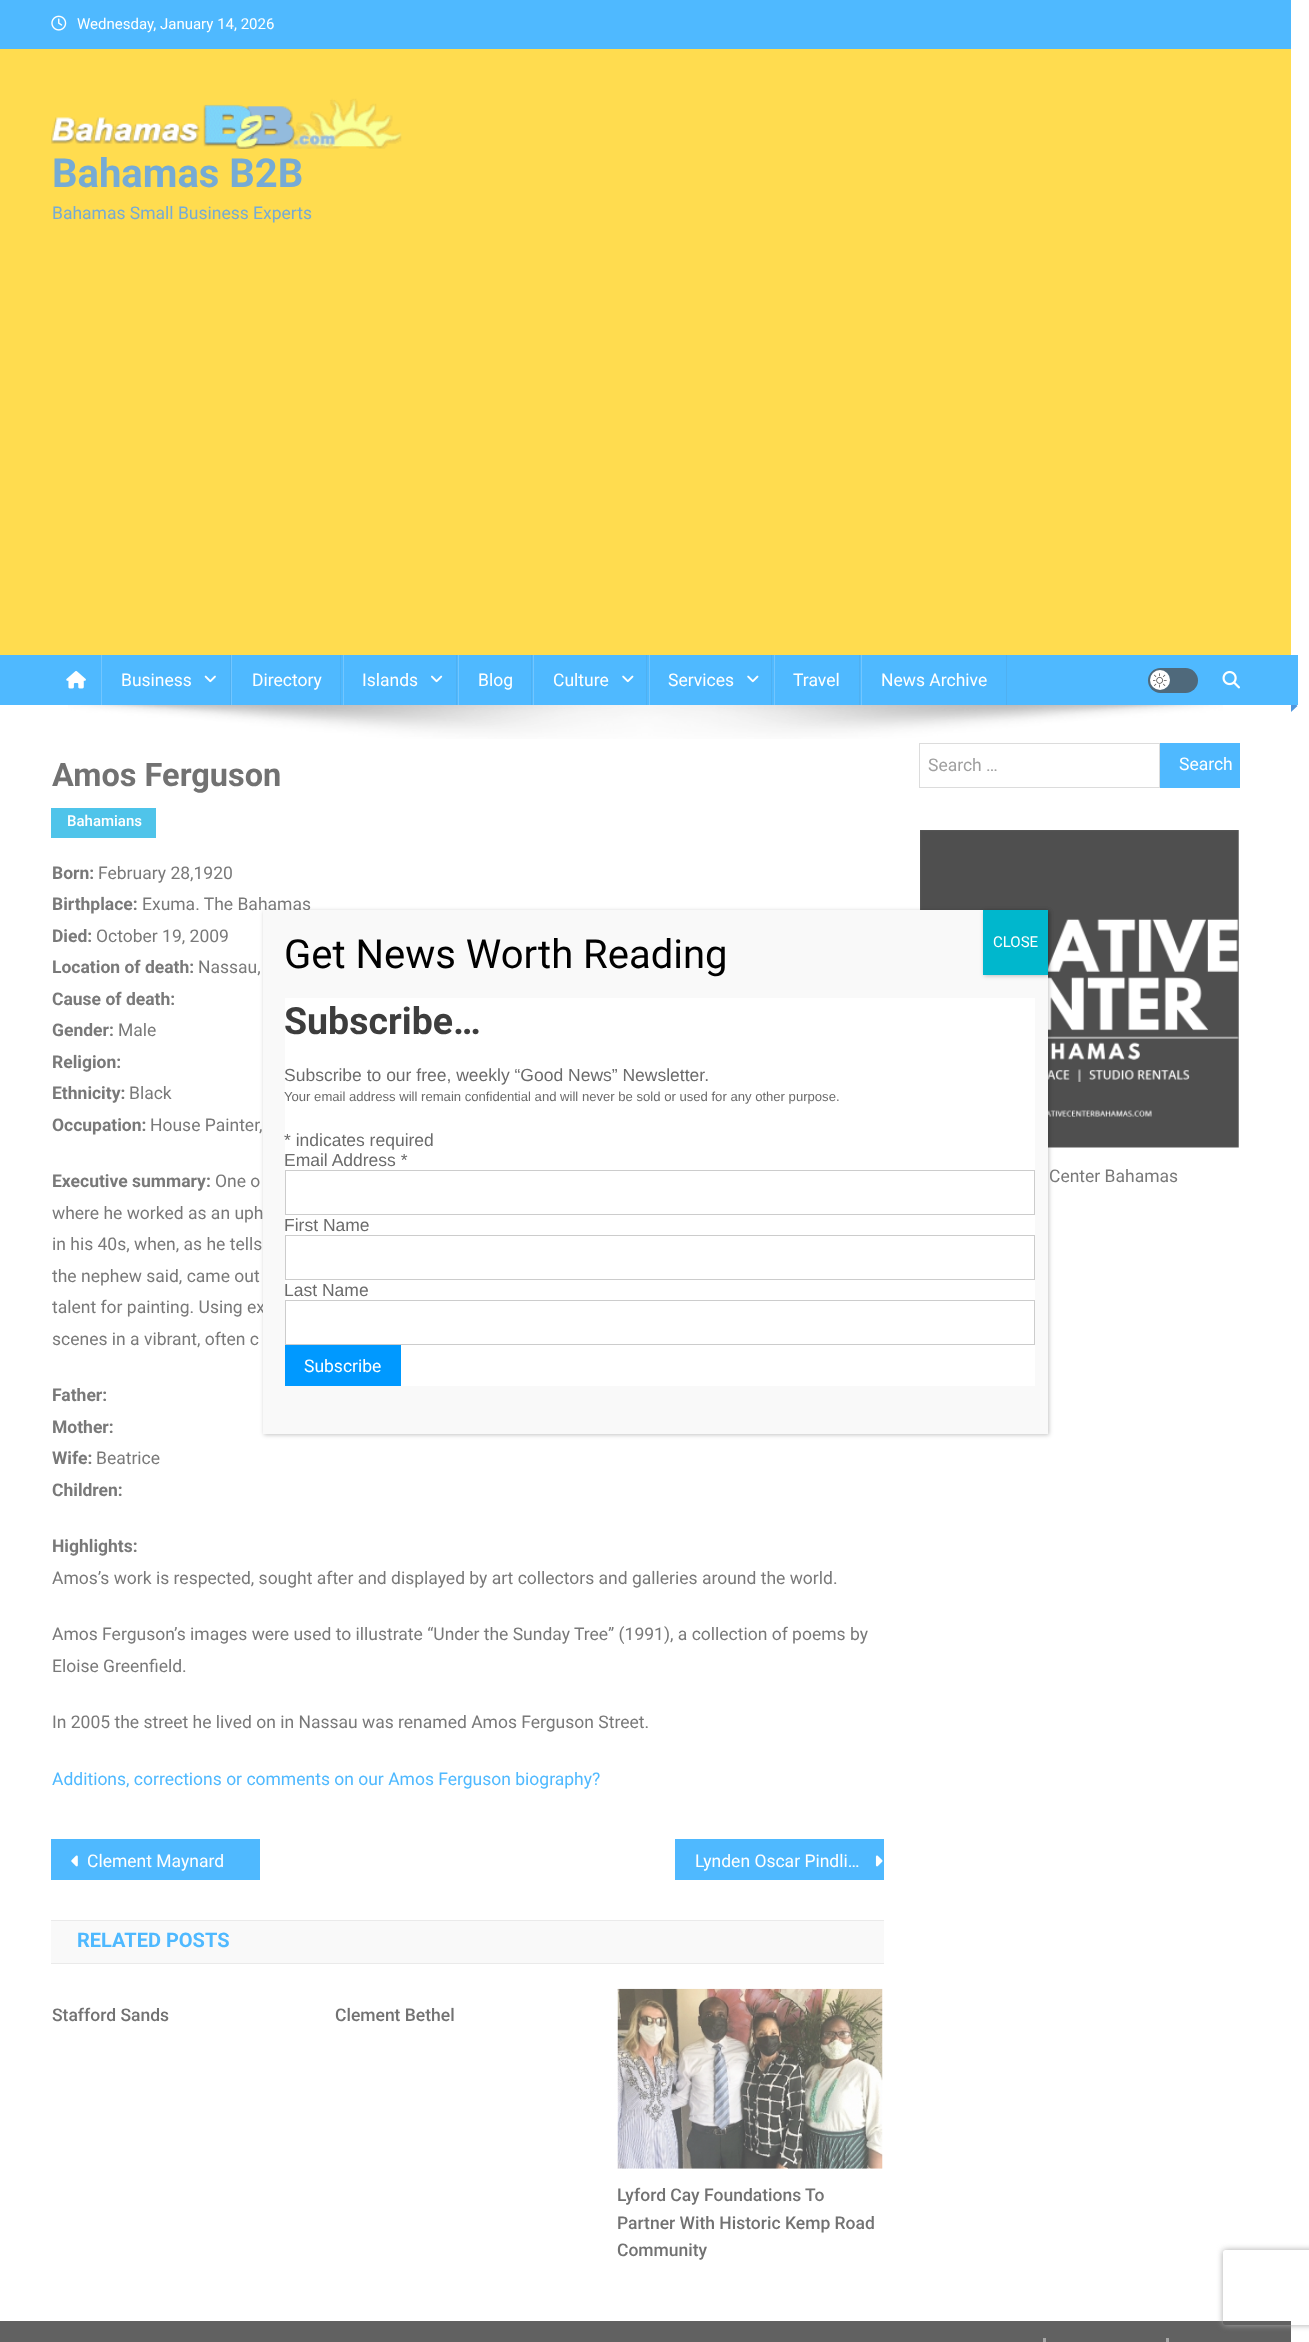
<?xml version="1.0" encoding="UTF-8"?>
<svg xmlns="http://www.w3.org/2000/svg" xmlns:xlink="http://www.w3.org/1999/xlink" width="1309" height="2342">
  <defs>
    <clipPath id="clip1"><path d="M 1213 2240 h 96 v 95 h -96 z m 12.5 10 h 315 c 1.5 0 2.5 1 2.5 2.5 v 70 c 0 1.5 -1 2.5 -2.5 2.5 h -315 c -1.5 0 -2.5 -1 -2.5 -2.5 v -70 c 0 -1.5 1 -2.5 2.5 -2.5 z" clip-rule="evenodd" /></clipPath>
  </defs>
  <rect width="100%" height="100%" fill="#ffffff" />
  <rect width="1291" height="49" fill="#4fb9ff" />
  <image x="51" y="15" width="16" height="16" xlink:href="image1.png" />
  <rect y="49" width="1291" height="606" fill="#ffdc4f" />
  <image x="51" y="98" width="351" height="51" xlink:href="image2.png" />
  <rect y="655" width="1291" height="50" fill="#4fb9ff" />
  <image x="66" y="671" width="20" height="18" xlink:href="image3.png" />
  <rect x="230" y="655" width="1" height="50" fill="#4fb0f1" />
  <rect x="101" y="655" width="1" height="50" fill="#72c6ff" />
  <image x="204" y="675" width="12" height="8" xlink:href="image4.png" />
  <rect x="340" y="655" width="1" height="50" fill="#4fb0f1" />
  <rect x="231" y="655" width="1" height="50" fill="#72c6ff" />
  <rect x="456" y="655" width="1" height="50" fill="#4fb0f1" />
  <rect x="343" y="655" width="1" height="50" fill="#72c6ff" />
  <image x="431" y="675" width="12" height="8" xlink:href="image5.png" />
  <rect x="531" y="655" width="1" height="50" fill="#4fb0f1" />
  <rect x="458" y="655" width="1" height="50" fill="#72c6ff" />
  <rect x="646" y="655" width="1" height="50" fill="#4fb0f1" />
  <rect x="533" y="655" width="1" height="50" fill="#72c6ff" />
  <image x="622" y="675" width="12" height="8" xlink:href="image6.png" />
  <rect x="771" y="655" width="1" height="50" fill="#4fb0f1" />
  <rect x="649" y="655" width="1" height="50" fill="#72c6ff" />
  <image x="747" y="675" width="12" height="8" xlink:href="image6.png" />
  <rect x="859" y="655" width="1" height="50" fill="#4fb0f1" />
  <rect x="774" y="655" width="1" height="50" fill="#72c6ff" />
  <rect x="1006" y="655" width="1" height="50" fill="#4fb0f1" />
  <rect x="861" y="655" width="1" height="50" fill="#72c6ff" />
  <rect x="1148" y="668" width="50" height="25" rx="12.5" fill="#4f697b" />
  <circle cx="1160" cy="680" r="10" fill="#ffffff" />
  <image x="1153" y="673" width="14" height="15" xlink:href="image7.png" />
  <image x="1222" y="670" width="18" height="19" xlink:href="image8.png" />
  <image x="68" y="705" width="1155" height="34" xlink:href="image9.png" />
  <path d="M 1291 712 v -12.5 l 6.5 6.5 z" fill="#4f96dd" />
  <rect x="1291" y="655" width="7" height="50" fill="#4fb9ff" />
  <rect x="51" y="808" width="105" height="30" fill="#4fc4ea" />
  <rect x="51" y="1839" width="209" height="41" fill="#4fb9ff" />
  <image x="71" y="1855" width="7" height="12" xlink:href="image10.png" />
  <rect x="675" y="1839" width="209" height="41" fill="#4fb9ff" />
  <image x="875" y="1855" width="8" height="12" xlink:href="image11.png" />
  <rect x="51" y="1921" width="833" height="42" fill="#f9f9f9" />
  <rect x="51" y="1920" width="833" height="1" fill="#eaeaea" />
  <rect x="51" y="1963" width="833" height="1" fill="#eaeaea" />
  <image x="617" y="1988" width="266" height="181" xlink:href="image12.png" />
  <rect x="919.5" y="743.5" width="240" height="44" fill="none" stroke="#dcdcdc" />
  <rect x="1160" y="743" width="80" height="45" fill="#4fb9ff" />
  <image x="920" y="830" width="319" height="318" xlink:href="image13.png" />
  <rect y="2321" width="1291" height="21" fill="#616161" />
  <rect x="1043" y="2338" width="3" height="4" fill="#a7a7a7" />
  <rect x="1166" y="2338" width="3" height="4" fill="#a7a7a7" />
  <rect x="264" y="911" width="785" height="524" fill="#020202" fill-opacity="0.23" filter="blur(2px)" />
  <g clip-path="url(#clip1)">
    <rect x="1223" y="2250" width="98" height="75" rx="2.5" fill="#a7a7a7" filter="blur(3px)" />
  </g>
  <text x="77" y="29" style="font-family: Roboto; font-size: 15px; fill: #ffffff">Wednesday, January 14, 2026</text>
  <text x="52" y="187" style="font-family: Roboto; font-size: 40px; font-weight: bold; fill: #76abd5">Bahamas B2B</text>
  <text x="52" y="219" style="font-family: Roboto; font-size: 17.5px; fill: #76abd5">Bahamas Small Business Experts</text>
  <text x="121" y="686" style="font-family: Roboto; font-size: 17.5px; fill: #ffffff">Business</text>
  <text x="252" y="686" style="font-family: Roboto; font-size: 17.5px; fill: #ffffff">Directory</text>
  <text x="362" y="686" style="font-family: Roboto; font-size: 17.5px; fill: #ffffff">Islands</text>
  <text x="478" y="686" style="font-family: Roboto; font-size: 17.5px; fill: #ffffff">Blog</text>
  <text x="553" y="686" style="font-family: Roboto; font-size: 17.5px; fill: #ffffff">Culture</text>
  <text x="668" y="686" style="font-family: Roboto; font-size: 17.5px; fill: #ffffff">Services</text>
  <text x="793" y="686" style="font-family: Roboto; font-size: 17.5px; fill: #ffffff">Travel</text>
  <text x="881" y="686" style="font-family: Roboto; font-size: 17.5px; fill: #ffffff">News Archive</text>
  <text x="52" y="786" style="font-family: Roboto; font-size: 32.5px; font-weight: bold; fill: #727272">Amos Ferguson</text>
  <text x="67" y="826" style="font-family: Roboto; font-size: 15px; font-weight: 500; fill: #ffffff">Bahamians</text>
  <text x="52" y="879" style="font-family: Roboto; font-size: 17.5px; font-weight: bold; fill: #797979">Born:</text>
  <text x="98" y="879" style="font-family: Roboto; font-size: 17.5px; fill: #797979">February 28,1920</text>
  <text x="52" y="910" style="font-family: Roboto; font-size: 17.5px; font-weight: bold; fill: #797979">Birthplace:</text>
  <text x="142" y="910" style="font-family: Roboto; font-size: 17.5px; fill: #797979">Exuma. The Bahamas</text>
  <text x="52" y="942" style="font-family: Roboto; font-size: 17.5px; font-weight: bold; fill: #797979">Died:</text>
  <text x="96" y="942" style="font-family: Roboto; font-size: 17.5px; fill: #797979">October 19, 2009</text>
  <text x="52" y="973" style="font-family: Roboto; font-size: 17.5px; font-weight: bold; fill: #797979">Location of death:</text>
  <text x="198" y="973" style="font-family: Roboto; font-size: 17.5px; fill: #797979">Nassau,</text>
  <text x="52" y="1005" style="font-family: Roboto; font-size: 17.5px; font-weight: bold; fill: #797979">Cause of death:</text>
  <text x="52" y="1036" style="font-family: Roboto; font-size: 17.5px; font-weight: bold; fill: #797979">Gender:</text>
  <text x="118" y="1036" style="font-family: Roboto; font-size: 17.5px; fill: #797979">Male</text>
  <text x="52" y="1068" style="font-family: Roboto; font-size: 17.5px; font-weight: bold; fill: #797979">Religion:</text>
  <text x="52" y="1099" style="font-family: Roboto; font-size: 17.5px; font-weight: bold; fill: #797979">Ethnicity:</text>
  <text x="129" y="1099" style="font-family: Roboto; font-size: 17.5px; fill: #797979">Black</text>
  <text x="52" y="1131" style="font-family: Roboto; font-size: 17.5px; font-weight: bold; fill: #797979">Occupation:</text>
  <text x="150" y="1131" style="font-family: Roboto; font-size: 17.5px; fill: #797979">House Painter,</text>
  <text x="52" y="1187" style="font-family: Roboto; font-size: 17.5px; font-weight: bold; fill: #797979">Executive summary:</text>
  <text x="215" y="1187" style="font-family: Roboto; font-size: 17.5px; fill: #797979">One o</text>
  <text x="52" y="1219" style="font-family: Roboto; font-size: 17.5px; fill: #797979">where he worked as an uph</text>
  <text x="52" y="1250" style="font-family: Roboto; font-size: 17.5px; fill: #797979">in his 40s, when, as he tells</text>
  <text x="52" y="1282" style="font-family: Roboto; font-size: 17.5px; fill: #797979">the nephew said, came out</text>
  <text x="52" y="1313" style="font-family: Roboto; font-size: 17.5px; fill: #797979">talent for painting. Using ex</text>
  <text x="52" y="1345" style="font-family: Roboto; font-size: 17.5px; fill: #797979">scenes in a vibrant, often c</text>
  <text x="52" y="1401" style="font-family: Roboto; font-size: 17.5px; font-weight: bold; fill: #797979">Father:</text>
  <text x="52" y="1433" style="font-family: Roboto; font-size: 17.5px; font-weight: bold; fill: #797979">Mother:</text>
  <text x="52" y="1464" style="font-family: Roboto; font-size: 17.5px; font-weight: bold; fill: #797979">Wife:</text>
  <text x="96" y="1464" style="font-family: Roboto; font-size: 17.5px; fill: #797979">Beatrice</text>
  <text x="52" y="1496" style="font-family: Roboto; font-size: 17.5px; font-weight: bold; fill: #797979">Children:</text>
  <text x="52" y="1552" style="font-family: Roboto; font-size: 17.5px; font-weight: bold; fill: #797979">Highlights:</text>
  <text x="52" y="1584" style="font-family: Roboto; font-size: 17.5px; fill: #797979">Amos’s work is respected, sought after and displayed by art collectors and galleries around the world.</text>
  <text x="52" y="1640" style="font-family: Roboto; font-size: 17.5px; fill: #797979">Amos Ferguson’s images were used to illustrate “Under the Sunday Tree” (1991), a collection of poems by</text>
  <text x="52" y="1672" style="font-family: Roboto; font-size: 17.5px; fill: #797979">Eloise Greenfield.</text>
  <text x="52" y="1728" style="font-family: Roboto; font-size: 17.5px; fill: #797979">In 2005 the street he lived on in Nassau was renamed Amos Ferguson Street.</text>
  <text x="52" y="1785" style="font-family: Roboto; font-size: 17.5px; fill: #4fb9ff">Additions, corrections or comments on our Amos Ferguson biography?</text>
  <text x="87" y="1867" style="font-family: Roboto; font-size: 17.5px; fill: #ffffff">Clement Maynard</text>
  <text x="695" y="1867" style="font-family: Roboto; font-size: 17.5px; fill: #ffffff">Lynden Oscar Pindli…</text>
  <text x="77" y="1947" style="font-family: Roboto; font-size: 20px; font-weight: bold; fill: #4fb9ff">RELATED POSTS</text>
  <text x="52" y="2021" style="font-family: Roboto; font-size: 17.5px; font-weight: 500; fill: #727272">Stafford Sands</text>
  <text x="335" y="2021" style="font-family: Roboto; font-size: 17.5px; font-weight: 500; fill: #727272">Clement Bethel</text>
  <text x="617" y="2201" style="font-family: Roboto; font-size: 17.5px; font-weight: 500; fill: #727272">Lyford Cay Foundations To</text>
  <text x="617" y="2229" style="font-family: Roboto; font-size: 17.5px; font-weight: 500; fill: #727272">Partner With Historic Kemp Road</text>
  <text x="617" y="2256" style="font-family: Roboto; font-size: 17.5px; font-weight: 500; fill: #727272">Community</text>
  <text x="928" y="771" style="font-family: Roboto; font-size: 17.5px; fill: #a0a0a0">Search …</text>
  <text x="1179" y="770" style="font-family: Roboto; font-size: 17.5px; fill: #ffffff">Search</text>
  <text x="1049" y="1182" style="font-family: Roboto; font-size: 17.5px; fill: #797979">Center Bahamas</text>
  <rect x="263" y="910" width="785" height="524" fill="#f9f9f9" />
  <text x="284" y="968" style="font-family: Roboto; font-size: 40px; fill: #000000">Get News Worth Reading</text>
  <rect x="984" y="911" width="65" height="65" fill="#020202" fill-opacity="0.23" filter="blur(2px)" />
  <rect x="983" y="910" width="65" height="65" fill="#00b7cd" />
  <text x="993" y="947" style="font-family: Roboto; font-size: 15px; fill: #ffffff">CLOSE</text>
  <rect x="285" y="998" width="750" height="388" fill="#ffffff" />
  <text x="284" y="1034" style="font-family: Roboto; font-size: 37.5px; font-weight: bold; fill: #3d3d3d">Subscribe…</text>
  <text x="284" y="1081" style="font-family: Liberation Sans; font-size: 17.5px; fill: #6b6b6b">Subscribe to our free, weekly “Good News” Newsletter.</text>
  <text x="284" y="1101" style="font-family: Liberation Sans; font-size: 13.1px; fill: #6b6b6b">Your email address will remain confidential and will never be sold or used for any other purpose.</text>
  <text x="284" y="1146" style="font-family: Liberation Sans; font-size: 17.5px; fill: #6b6b6b">* indicates required</text>
  <text x="284" y="1166" style="font-family: Liberation Sans; font-size: 17.5px; fill: #6b6b6b">Email Address *</text>
  <rect x="285.5" y="1170.5" width="749" height="44" fill="none" stroke="#cccccc" />
  <text x="284" y="1231" style="font-family: Liberation Sans; font-size: 17.5px; fill: #6b6b6b">First Name</text>
  <rect x="285.5" y="1235.5" width="749" height="44" fill="none" stroke="#cccccc" />
  <text x="284" y="1296" style="font-family: Liberation Sans; font-size: 17.5px; fill: #6b6b6b">Last Name</text>
  <rect x="285.5" y="1300.5" width="749" height="44" fill="none" stroke="#cccccc" />
  <rect x="285" y="1345" width="116" height="41" fill="#0099ff" />
  <text x="304" y="1372" style="font-family: Roboto; font-size: 17.5px; fill: #ffffff">Subscribe</text>
</svg>
